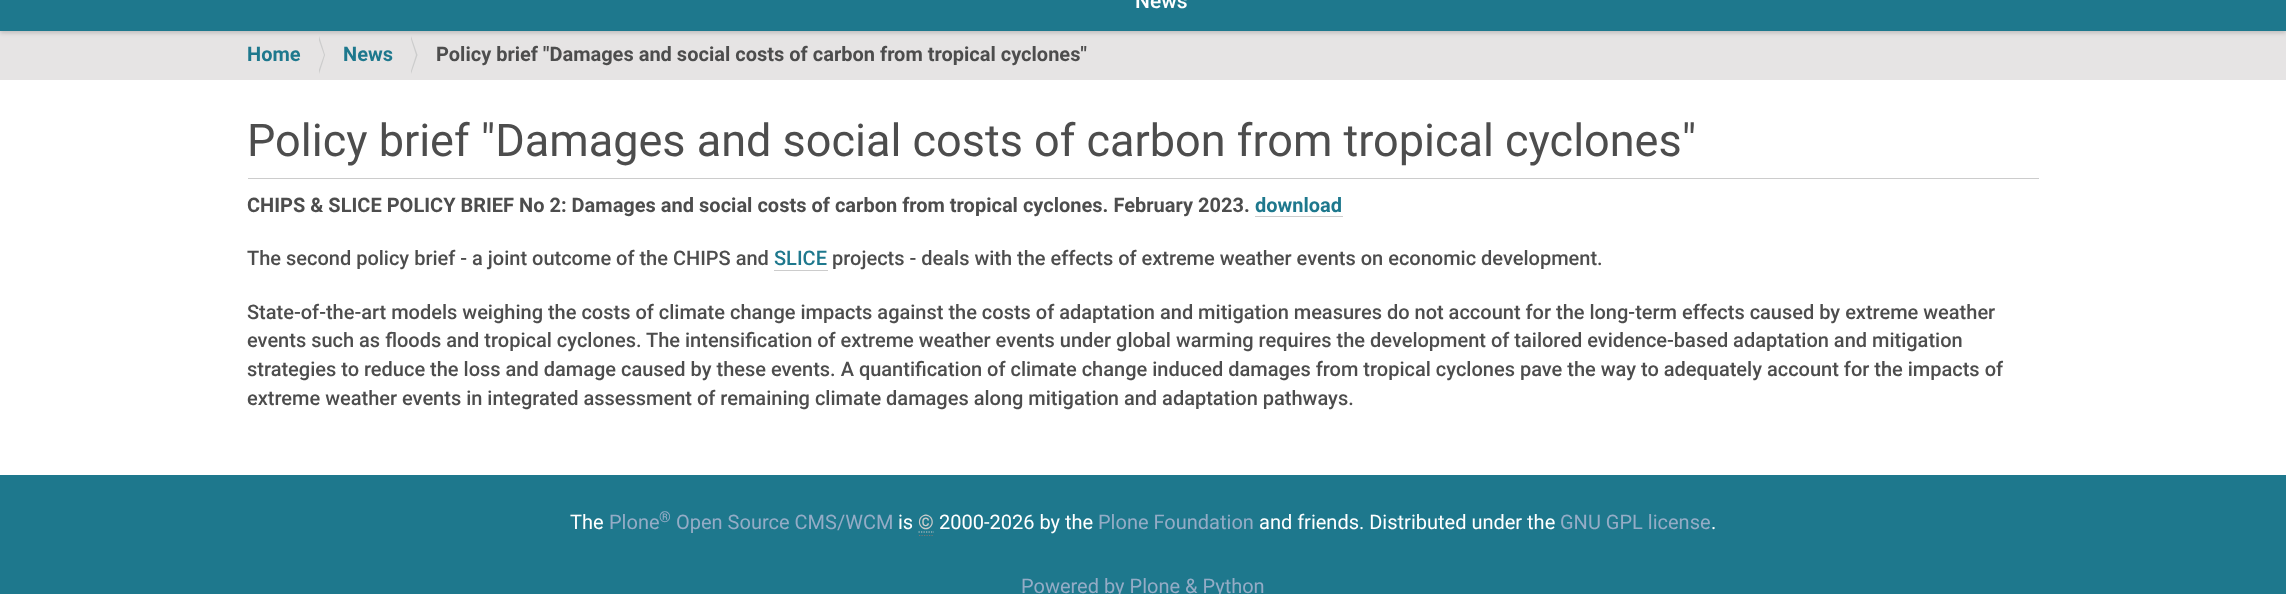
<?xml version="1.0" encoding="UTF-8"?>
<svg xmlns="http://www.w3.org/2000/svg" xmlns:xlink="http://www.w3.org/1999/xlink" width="2286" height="594">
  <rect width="100%" height="100%" fill="#ffffff" />
  <rect y="31" width="2286" height="49" fill="#e6e4e4" />
  <rect y="-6" width="2286" height="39" fill="#000000" fill-opacity="0.17" filter="blur(2px)" />
  <rect width="2286" height="31" fill="#1e788d" />
  <path d="M 319 74 v -38 l 6 19 z" fill="#cccccc" />
  <path d="M 317.5 74 v -38 l 6.5 19 z" fill="#e6e4e4" />
  <path d="M 411 74 v -38 l 6.5 19 z" fill="#cccccc" />
  <path d="M 410 74 v -38 l 6 19 z" fill="#e6e4e4" />
  <rect x="248" y="178" width="1791" height="1" fill="#cccccc" />
  <rect x="1255" y="216" width="88" height="1" fill="#cccccc" />
  <rect x="774" y="270" width="54" height="1" fill="#cccccc" />
  <rect y="475" width="2286" height="119" fill="#1e788d" />
  <path d="M 919 535.5 h 15" fill="none" stroke="#777777" stroke-width="1.2" stroke-dasharray="1.25 1.25" />
  <path d="M 918.5 532 h 15.5" fill="none" stroke="#cccccc" stroke-width="1.2" stroke-dasharray="1.25 1.25" />
  <text x="1135" y="8" style="font-family: Roboto; font-size: 21px; font-weight: 500; fill: #ffffff">News</text>
  <text x="247" y="61" style="font-family: Roboto; font-size: 20px; font-weight: bold; fill: #1e788d">Home</text>
  <text x="343" y="61" style="font-family: Roboto; font-size: 20px; font-weight: bold; fill: #1e788d">News</text>
  <text x="436" y="61" style="font-family: Roboto; font-size: 20px; font-weight: bold; fill: #4d4d4d">Policy brief "Damages and social costs of carbon from tropical cyclones"</text>
  <text x="247" y="156" style="font-family: Roboto; font-size: 45px; fill: #4d4d4d">Policy brief "Damages and social costs of carbon from tropical cyclones"</text>
  <text x="247" y="212" style="font-family: Roboto; font-size: 20px; font-weight: bold; fill: #4d4d4d">CHIPS &amp; SLICE POLICY BRIEF No 2: Damages and social costs of carbon from tropical cyclones. February 2023.</text>
  <text x="1255" y="212" style="font-family: Roboto; font-size: 20px; font-weight: bold; fill: #1e788d">download</text>
  <text x="247" y="265" style="font-family: Roboto; font-size: 20px; font-weight: 500; fill: #4d4d4d">The second policy brief - a joint outcome of the CHIPS and</text>
  <text x="774" y="265" style="font-family: Roboto; font-size: 20px; font-weight: 500; fill: #1e788d">SLICE</text>
  <text x="832" y="265" style="font-family: Roboto; font-size: 20px; font-weight: 500; fill: #4d4d4d">projects - deals with the effects of extreme weather events on economic development.</text>
  <text x="247" y="319" style="font-family: Roboto; font-size: 20px; font-weight: 500; fill: #4d4d4d">State-of-the-art models weighing the costs of climate change impacts against the costs of adaptation and mitigation measures do not account for the long-term effects caused by extreme weather</text>
  <text x="247" y="347" style="font-family: Roboto; font-size: 20px; font-weight: 500; fill: #4d4d4d">events such as floods and tropical cyclones. The intensification of extreme weather events under global warming requires the development of tailored evidence-based adaptation and mitigation</text>
  <text x="247" y="376" style="font-family: Roboto; font-size: 20px; font-weight: 500; fill: #4d4d4d">strategies to reduce the loss and damage caused by these events. A quantification of climate change induced damages from tropical cyclones pave the way to adequately account for the impacts of</text>
  <text x="247" y="405" style="font-family: Roboto; font-size: 20px; font-weight: 500; fill: #4d4d4d">extreme weather events in integrated assessment of remaining climate damages along mitigation and adaptation pathways.</text>
  <text x="570" y="529" style="font-family: Roboto; font-size: 20px; fill: #ffffff">The</text>
  <text x="609" y="529" style="font-family: Roboto; font-size: 20px; fill: #94acc6">Plone</text>
  <text x="659" y="522" style="font-family: Roboto; font-size: 15px; fill: #94acc6">®</text>
  <text x="676" y="529" style="font-family: Roboto; font-size: 20px; fill: #94acc6">Open Source CMS/WCM</text>
  <text x="898" y="529" style="font-family: Roboto; font-size: 20px; fill: #ffffff">is</text>
  <text x="918" y="529" style="font-family: Roboto; font-size: 20px; fill: #cccccc">©</text>
  <text x="939" y="529" style="font-family: Roboto; font-size: 20px; fill: #ffffff">2000-2026 by the</text>
  <text x="1098" y="529" style="font-family: Roboto; font-size: 20px; fill: #94acc6">Plone Foundation</text>
  <text x="1259" y="529" style="font-family: Roboto; font-size: 20px; fill: #ffffff">and friends. Distributed under the</text>
  <text x="1560" y="529" style="font-family: Roboto; font-size: 20px; fill: #94acc6">GNU GPL license</text>
  <text x="1711" y="529" style="font-family: Roboto; font-size: 20px; fill: #ffffff">.</text>
  <text x="1021" y="593" style="font-family: Roboto; font-size: 20px; fill: #94acc6">Powered by Plone &amp; Python</text>
</svg>
